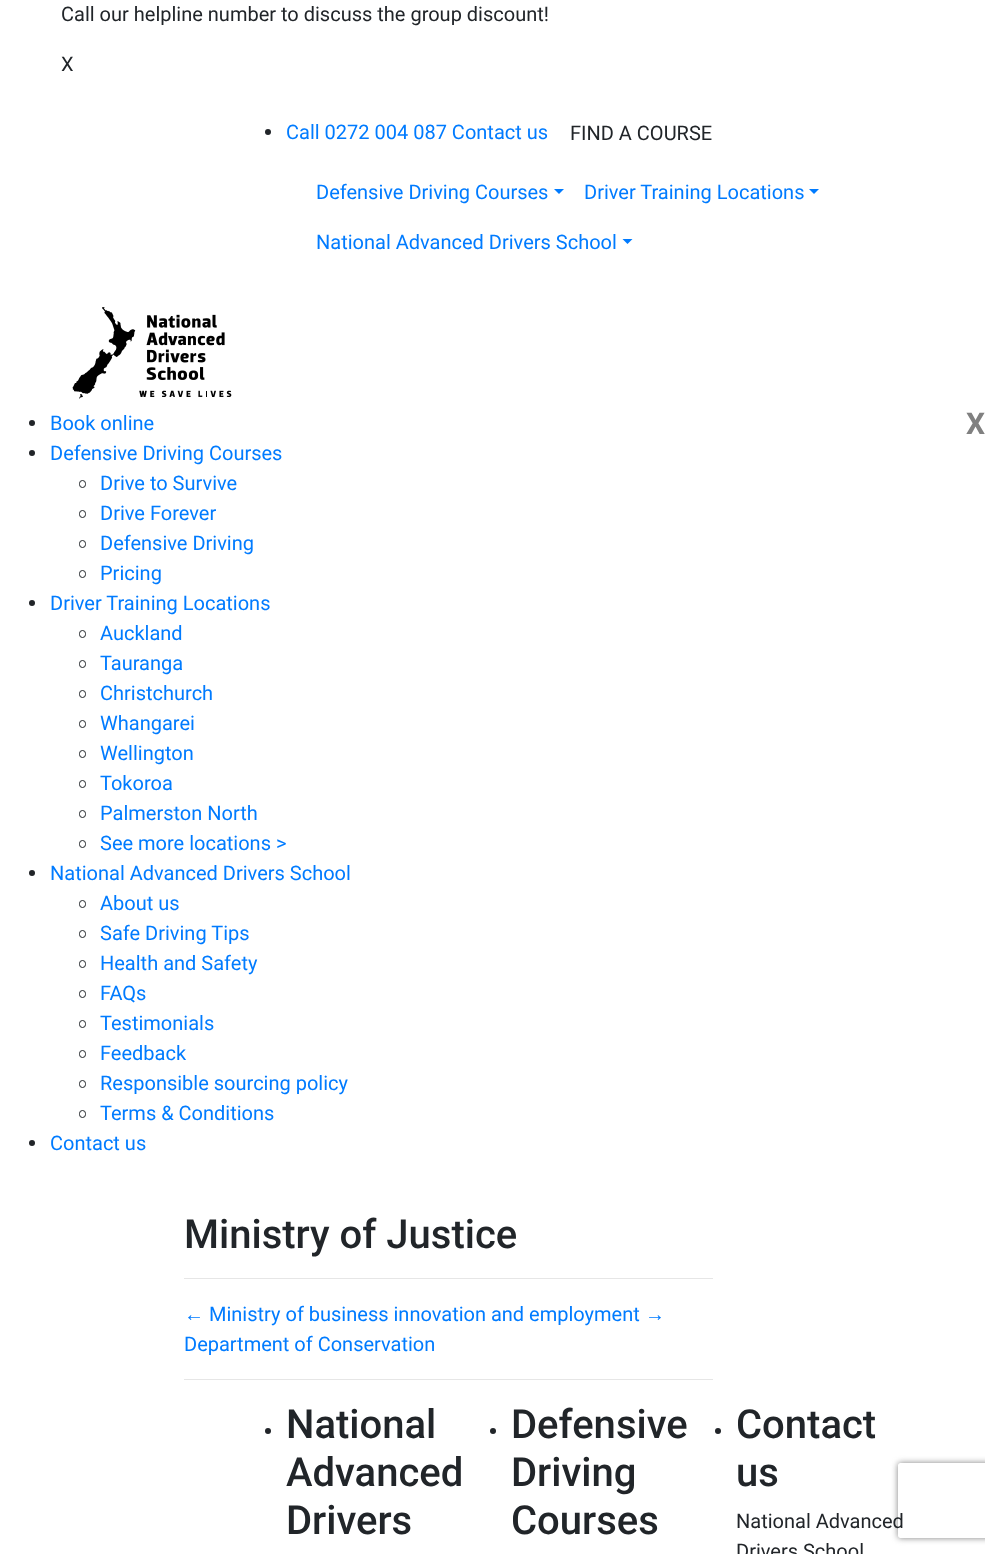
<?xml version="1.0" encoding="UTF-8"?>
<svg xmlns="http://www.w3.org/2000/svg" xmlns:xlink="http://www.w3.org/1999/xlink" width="985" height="1554">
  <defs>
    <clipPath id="clip1"><path d="M 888 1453 h 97 v 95 h -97 z m 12.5 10 h 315 c 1.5 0 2.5 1 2.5 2.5 v 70 c 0 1.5 -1 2.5 -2.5 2.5 h -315 c -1.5 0 -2.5 -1 -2.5 -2.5 v -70 c 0 -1.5 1 -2.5 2.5 -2.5 z" clip-rule="evenodd" /></clipPath>
  </defs>
  <rect width="100%" height="100%" fill="#ffffff" />
  <circle cx="268" cy="132" r="3" fill="#212529" />
  <path d="M 554 189 h 10 l -5 5 z" fill="#007bff" />
  <path d="M 809 189 h 10 l -5 5 z" fill="#007bff" />
  <path d="M 622.5 239 h 10 l -5 5 z" fill="#007bff" />
  <image x="72" y="307" width="160" height="92" xlink:href="image1.png" />
  <circle cx="32" cy="423" r="3" fill="#212529" />
  <circle cx="32" cy="453" r="3" fill="#212529" />
  <rect x="79.5" y="480.5" width="6" height="7" rx="3" fill="none" stroke="#212529" />
  <rect x="79.5" y="510.5" width="6" height="7" rx="3" fill="none" stroke="#212529" />
  <rect x="79.5" y="540.5" width="6" height="7" rx="3" fill="none" stroke="#212529" />
  <rect x="79.5" y="570.5" width="6" height="7" rx="3" fill="none" stroke="#212529" />
  <circle cx="32" cy="603" r="3" fill="#212529" />
  <rect x="79.5" y="630.5" width="6" height="7" rx="3" fill="none" stroke="#212529" />
  <rect x="79.5" y="660.5" width="6" height="7" rx="3" fill="none" stroke="#212529" />
  <rect x="79.5" y="690.5" width="6" height="7" rx="3" fill="none" stroke="#212529" />
  <rect x="79.5" y="720.5" width="6" height="7" rx="3" fill="none" stroke="#212529" />
  <rect x="79.5" y="750.5" width="6" height="7" rx="3" fill="none" stroke="#212529" />
  <rect x="79.5" y="780.5" width="6" height="7" rx="3" fill="none" stroke="#212529" />
  <rect x="79.5" y="810.5" width="6" height="7" rx="3" fill="none" stroke="#212529" />
  <rect x="79.5" y="840.5" width="6" height="7" rx="3" fill="none" stroke="#212529" />
  <circle cx="32" cy="873" r="3" fill="#212529" />
  <rect x="79.5" y="900.5" width="6" height="7" rx="3" fill="none" stroke="#212529" />
  <rect x="79.5" y="930.5" width="6" height="7" rx="3" fill="none" stroke="#212529" />
  <rect x="79.5" y="960.5" width="6" height="7" rx="3" fill="none" stroke="#212529" />
  <rect x="79.5" y="990.5" width="6" height="7" rx="3" fill="none" stroke="#212529" />
  <rect x="79.5" y="1020.5" width="6" height="7" rx="3" fill="none" stroke="#212529" />
  <rect x="79.5" y="1050.5" width="6" height="7" rx="3" fill="none" stroke="#212529" />
  <rect x="79.5" y="1080.5" width="6" height="7" rx="3" fill="none" stroke="#212529" />
  <rect x="79.5" y="1110.5" width="6" height="7" rx="3" fill="none" stroke="#212529" />
  <circle cx="32" cy="1143" r="3" fill="#212529" />
  <rect x="184" y="1278" width="529" height="1" fill="#e6e6e6" />
  <rect x="184" y="1379" width="529" height="1" fill="#e6e6e6" />
  <circle cx="268" cy="1431" r="3" fill="#212529" />
  <circle cx="493" cy="1431" r="3" fill="#212529" />
  <circle cx="718" cy="1431" r="3" fill="#212529" />
  <g clip-path="url(#clip1)">
    <rect x="898" y="1463" width="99" height="75" rx="2.5" fill="#808080" filter="blur(3px)" />
  </g>
  <text x="61" y="21" style="font-family: Roboto; font-size: 20px; fill: #212529">Call our helpline number to discuss the group discount!</text>
  <text x="61" y="71" style="font-family: Roboto; font-size: 20px; fill: #212529">X</text>
  <text x="286" y="139" style="font-family: Roboto; font-size: 20px; fill: #007bff">Call 0272 004 087 Contact us</text>
  <text x="570" y="140" style="font-family: Roboto; font-size: 20px; fill: #212529">FIND A COURSE</text>
  <text x="316" y="199" style="font-family: Roboto; font-size: 20px; fill: #007bff">Defensive Driving Courses</text>
  <text x="584" y="199" style="font-family: Roboto; font-size: 20px; fill: #007bff">Driver Training Locations</text>
  <text x="316" y="249" style="font-family: Roboto; font-size: 20px; fill: #007bff">National Advanced Drivers School</text>
  <text x="50" y="430" style="font-family: Roboto; font-size: 20px; fill: #007bff">Book online</text>
  <text x="50" y="460" style="font-family: Roboto; font-size: 20px; fill: #007bff">Defensive Driving Courses</text>
  <text x="100" y="490" style="font-family: Roboto; font-size: 20px; fill: #007bff">Drive to Survive</text>
  <text x="100" y="520" style="font-family: Roboto; font-size: 20px; fill: #007bff">Drive Forever</text>
  <text x="100" y="550" style="font-family: Roboto; font-size: 20px; fill: #007bff">Defensive Driving</text>
  <text x="100" y="580" style="font-family: Roboto; font-size: 20px; fill: #007bff">Pricing</text>
  <text x="50" y="610" style="font-family: Roboto; font-size: 20px; fill: #007bff">Driver Training Locations</text>
  <text x="100" y="640" style="font-family: Roboto; font-size: 20px; fill: #007bff">Auckland</text>
  <text x="100" y="670" style="font-family: Roboto; font-size: 20px; fill: #007bff">Tauranga</text>
  <text x="100" y="700" style="font-family: Roboto; font-size: 20px; fill: #007bff">Christchurch</text>
  <text x="100" y="730" style="font-family: Roboto; font-size: 20px; fill: #007bff">Whangarei</text>
  <text x="100" y="760" style="font-family: Roboto; font-size: 20px; fill: #007bff">Wellington</text>
  <text x="100" y="790" style="font-family: Roboto; font-size: 20px; fill: #007bff">Tokoroa</text>
  <text x="100" y="820" style="font-family: Roboto; font-size: 20px; fill: #007bff">Palmerston North</text>
  <text x="100" y="850" style="font-family: Roboto; font-size: 20px; fill: #007bff">See more locations &gt;</text>
  <text x="50" y="880" style="font-family: Roboto; font-size: 20px; fill: #007bff">National Advanced Drivers School</text>
  <text x="100" y="910" style="font-family: Roboto; font-size: 20px; fill: #007bff">About us</text>
  <text x="100" y="940" style="font-family: Roboto; font-size: 20px; fill: #007bff">Safe Driving Tips</text>
  <text x="100" y="970" style="font-family: Roboto; font-size: 20px; fill: #007bff">Health and Safety</text>
  <text x="100" y="1000" style="font-family: Roboto; font-size: 20px; fill: #007bff">FAQs</text>
  <text x="100" y="1030" style="font-family: Roboto; font-size: 20px; fill: #007bff">Testimonials</text>
  <text x="100" y="1060" style="font-family: Roboto; font-size: 20px; fill: #007bff">Feedback</text>
  <text x="100" y="1090" style="font-family: Roboto; font-size: 20px; fill: #007bff">Responsible sourcing policy</text>
  <text x="100" y="1120" style="font-family: Roboto; font-size: 20px; fill: #007bff">Terms &amp; Conditions</text>
  <text x="50" y="1150" style="font-family: Roboto; font-size: 20px; fill: #007bff">Contact us</text>
  <text x="966" y="434" style="font-family: Roboto; font-size: 30px; font-weight: bold; fill: #808080">X</text>
  <text x="184" y="1248" style="font-family: Roboto; font-size: 40px; font-weight: 500; fill: #212529">Ministry of Justice</text>
  <text x="184" y="1321" style="font-family: Liberation Sans; font-size: 20px; fill: #007bff">←</text>
  <text x="209" y="1321" style="font-family: Roboto; font-size: 20px; fill: #007bff">Ministry of business innovation and employment</text>
  <text x="645" y="1321" style="font-family: Liberation Sans; font-size: 20px; fill: #007bff">→</text>
  <text x="184" y="1351" style="font-family: Roboto; font-size: 20px; fill: #007bff">Department of Conservation</text>
  <text x="286" y="1438" style="font-family: Roboto; font-size: 40px; font-weight: 500; fill: #212529">National</text>
  <text x="286" y="1486" style="font-family: Roboto; font-size: 40px; font-weight: 500; fill: #212529">Advanced</text>
  <text x="286" y="1534" style="font-family: Roboto; font-size: 40px; font-weight: 500; fill: #212529">Drivers</text>
  <text x="511" y="1438" style="font-family: Roboto; font-size: 40px; font-weight: 500; fill: #212529">Defensive</text>
  <text x="511" y="1486" style="font-family: Roboto; font-size: 40px; font-weight: 500; fill: #212529">Driving</text>
  <text x="511" y="1534" style="font-family: Roboto; font-size: 40px; font-weight: 500; fill: #212529">Courses</text>
  <text x="736" y="1438" style="font-family: Roboto; font-size: 40px; font-weight: 500; fill: #212529">Contact</text>
  <text x="736" y="1486" style="font-family: Roboto; font-size: 40px; font-weight: 500; fill: #212529">us</text>
  <text x="736" y="1528" style="font-family: Roboto; font-size: 20px; fill: #212529">National Advanced</text>
  <text x="736" y="1558" style="font-family: Roboto; font-size: 20px; fill: #212529">Drivers School</text>
</svg>
